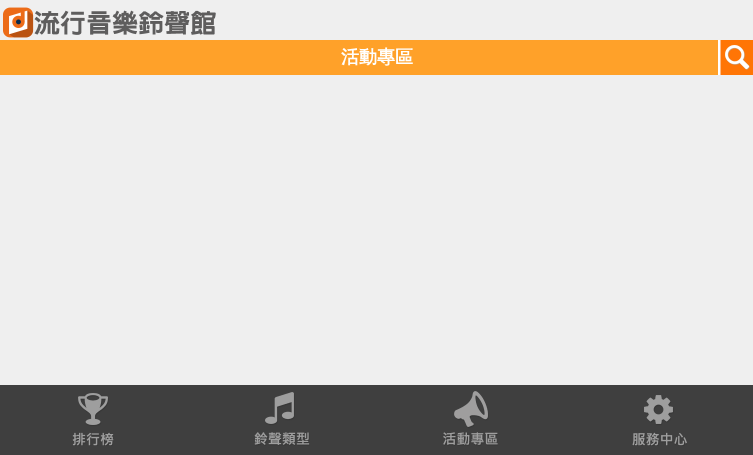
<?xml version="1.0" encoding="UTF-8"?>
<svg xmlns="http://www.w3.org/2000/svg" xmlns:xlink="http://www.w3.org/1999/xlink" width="753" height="455">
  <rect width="100%" height="100%" fill="#efefef" />
  <image x="3" y="7" width="213" height="31" xlink:href="image1.png" />
  <rect y="40" width="718" height="35" fill="#ffa129" />
  <rect x="720" y="40" width="33" height="35" fill="#ff7505" />
  <image x="718" y="40" width="32" height="35" xlink:href="image2.png" />
  <rect y="385" width="753" height="70" fill="#3f3f3f" />
  <image x="72" y="393" width="42" height="53" xlink:href="image3.png" />
  <image x="254" y="392" width="56" height="54" xlink:href="image4.png" />
  <image x="443" y="391" width="55" height="55" xlink:href="image5.png" />
  <image x="632" y="395" width="55" height="51" xlink:href="image6.png" />
  <text x="341" y="63" style="font-family: WenQuanYi Zen Hei; font-size: 18px; font-weight: bold; fill: #ffffff">活動專區</text>
</svg>
